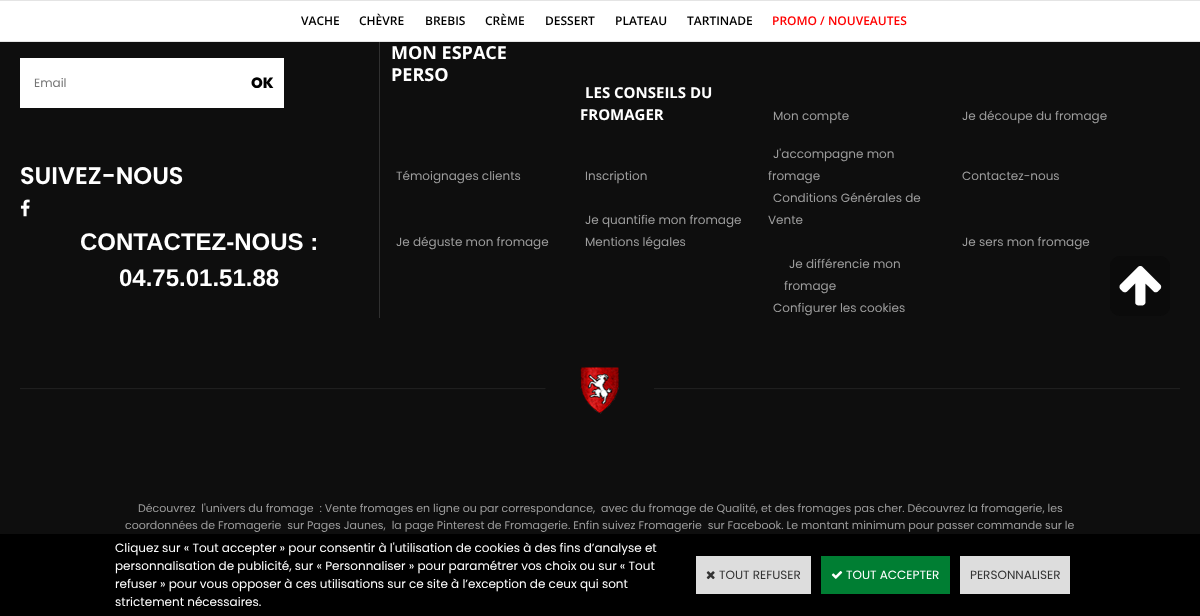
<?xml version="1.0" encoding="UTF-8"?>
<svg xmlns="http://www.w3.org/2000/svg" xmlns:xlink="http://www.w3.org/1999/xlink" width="1200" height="616">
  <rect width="100%" height="100%" fill="#0e0e0e" />
  <rect y="1" width="1200" height="40" fill="#ffffff" />
  <rect width="1200" height="1" fill="#e4e4e4" />
  <rect y="41" width="1200" height="1" fill="#e4e4e4" />
  <rect x="379" y="42" width="1" height="276" fill="#303030" />
  <rect x="20" y="58" width="264" height="50" fill="#ffffff" />
  <image x="20" y="199" width="10" height="18" xlink:href="image1.png" />
  <image x="20" y="367" width="1160" height="47" xlink:href="image2.png" />
  <rect x="1110" y="256" width="60" height="60" rx="10" fill="#0b0b0b" />
  <image x="1119" y="266" width="43" height="40" xlink:href="image3.png" />
  <rect y="534" width="1200" height="82" fill="#000000" />
  <rect x="696" y="556" width="115" height="38" fill="#dddddd" />
  <image x="706" y="571" width="9" height="9" xlink:href="image4.png" />
  <rect x="821" y="556" width="129" height="38" fill="#007e33" />
  <image x="831" y="571" width="12" height="8" xlink:href="image5.png" />
  <rect x="960" y="556" width="110" height="38" fill="#dddddd" />
  <text x="301" y="25" style="font-family: Open Sans; font-size: 12px; font-weight: 600; fill: #000000">VACHE</text>
  <text x="359" y="25" style="font-family: Open Sans; font-size: 12px; font-weight: 600; fill: #000000">CHÈVRE</text>
  <text x="425" y="25" style="font-family: Open Sans; font-size: 12px; font-weight: 600; fill: #000000">BREBIS</text>
  <text x="485" y="25" style="font-family: Open Sans; font-size: 12px; font-weight: 600; fill: #000000">CRÈME</text>
  <text x="545" y="25" style="font-family: Open Sans; font-size: 12px; font-weight: 600; fill: #000000">DESSERT</text>
  <text x="615" y="25" style="font-family: Open Sans; font-size: 12px; font-weight: 600; fill: #000000">PLATEAU</text>
  <text x="687" y="25" style="font-family: Open Sans; font-size: 12px; font-weight: 600; fill: #000000">TARTINADE</text>
  <text x="772" y="25" style="font-family: Open Sans; font-size: 12px; font-weight: 600; fill: #ff0000">PROMO / NOUVEAUTES</text>
  <text x="34" y="87" style="font-family: Poppins; font-size: 12px; fill: #757575">Email</text>
  <text x="251" y="88" style="font-family: Poppins; font-size: 15px; font-weight: 800; fill: #000000">OK</text>
  <text x="20" y="184" style="font-family: Poppins; font-size: 24px; font-weight: 600; fill: #ffffff">SUIVEZ-NOUS</text>
  <text x="80" y="250" style="font-family: Liberation Sans; font-size: 24px; font-weight: bold; fill: #ffffff">CONTACTEZ-NOUS :</text>
  <text x="119" y="286" style="font-family: Liberation Sans; font-size: 24px; font-weight: bold; fill: #ffffff">04.75.01.51.88</text>
  <text x="391" y="59" style="font-family: Open Sans; font-size: 18px; font-weight: bold; fill: #ffffff">MON ESPACE</text>
  <text x="391" y="81" style="font-family: Open Sans; font-size: 18px; font-weight: bold; fill: #ffffff">PERSO</text>
  <text x="585" y="98" style="font-family: Open Sans; font-size: 15px; font-weight: bold; fill: #ffffff">LES CONSEILS DU</text>
  <text x="580" y="120" style="font-family: Open Sans; font-size: 15px; font-weight: bold; fill: #ffffff">FROMAGER</text>
  <text x="773" y="120" style="font-family: Poppins; font-size: 12px; fill: #9d9d9d">Mon compte</text>
  <text x="962" y="120" style="font-family: Poppins; font-size: 12px; fill: #9d9d9d">Je découpe du fromage</text>
  <text x="396" y="180" style="font-family: Poppins; font-size: 12px; fill: #9d9d9d">Témoignages clients</text>
  <text x="585" y="180" style="font-family: Poppins; font-size: 12px; fill: #9d9d9d">Inscription</text>
  <text x="773" y="158" style="font-family: Poppins; font-size: 12px; fill: #9d9d9d">J'accompagne mon</text>
  <text x="768" y="180" style="font-family: Poppins; font-size: 12px; fill: #9d9d9d">fromage</text>
  <text x="962" y="180" style="font-family: Poppins; font-size: 12px; fill: #9d9d9d">Contactez-nous</text>
  <text x="585" y="224" style="font-family: Poppins; font-size: 12px; fill: #9d9d9d">Je quantifie mon fromage</text>
  <text x="773" y="202" style="font-family: Poppins; font-size: 12px; fill: #9d9d9d">Conditions Générales de</text>
  <text x="768" y="224" style="font-family: Poppins; font-size: 12px; fill: #9d9d9d">Vente</text>
  <text x="396" y="246" style="font-family: Poppins; font-size: 12px; fill: #9d9d9d">Je déguste mon fromage</text>
  <text x="585" y="246" style="font-family: Poppins; font-size: 12px; fill: #9d9d9d">Mentions légales</text>
  <text x="962" y="246" style="font-family: Poppins; font-size: 12px; fill: #9d9d9d">Je sers mon fromage</text>
  <text x="789" y="268" style="font-family: Poppins; font-size: 12px; fill: #9d9d9d">Je différencie mon</text>
  <text x="784" y="290" style="font-family: Poppins; font-size: 12px; fill: #9d9d9d">fromage</text>
  <text x="773" y="312" style="font-family: Poppins; font-size: 12px; fill: #9d9d9d">Configurer les cookies</text>
  <text x="138" y="512" style="font-family: Poppins; font-size: 11px; fill: #9d9d9d" xml:space="preserve">Découvrez  l'univers du fromage  : Vente fromages en ligne ou par correspondance,  avec du fromage de Qualité, et des fromages pas cher. Découvrez la fromagerie, les</text>
  <text x="125" y="529" style="font-family: Poppins; font-size: 11px; fill: #9d9d9d" xml:space="preserve">coordonnées de Fromagerie  sur Pages Jaunes,  la page Pinterest de Fromagerie. Enfin suivez Fromagerie  sur Facebook. Le montant minimum pour passer commande sur le</text>
  <text x="115" y="552" style="font-family: Poppins; font-size: 12px; fill: #ffffff">Cliquez sur « Tout accepter » pour consentir à l'utilisation de cookies à des fins d’analyse et</text>
  <text x="115" y="570" style="font-family: Poppins; font-size: 12px; fill: #ffffff">personnalisation de publicité, sur « Personnaliser » pour paramétrer vos choix ou sur « Tout</text>
  <text x="115" y="588" style="font-family: Poppins; font-size: 12px; fill: #ffffff">refuser » pour vous opposer à ces utilisations sur ce site à l’exception de ceux qui sont</text>
  <text x="115" y="606" style="font-family: Poppins; font-size: 12px; fill: #ffffff">strictement nécessaires.</text>
  <text x="719" y="579" style="font-family: Poppins; font-size: 12px; fill: #333333">TOUT REFUSER</text>
  <text x="846" y="579" style="font-family: Poppins; font-size: 12px; fill: #ffffff">TOUT ACCEPTER</text>
  <text x="970" y="579" style="font-family: Poppins; font-size: 12px; fill: #333333">PERSONNALISER</text>
</svg>
